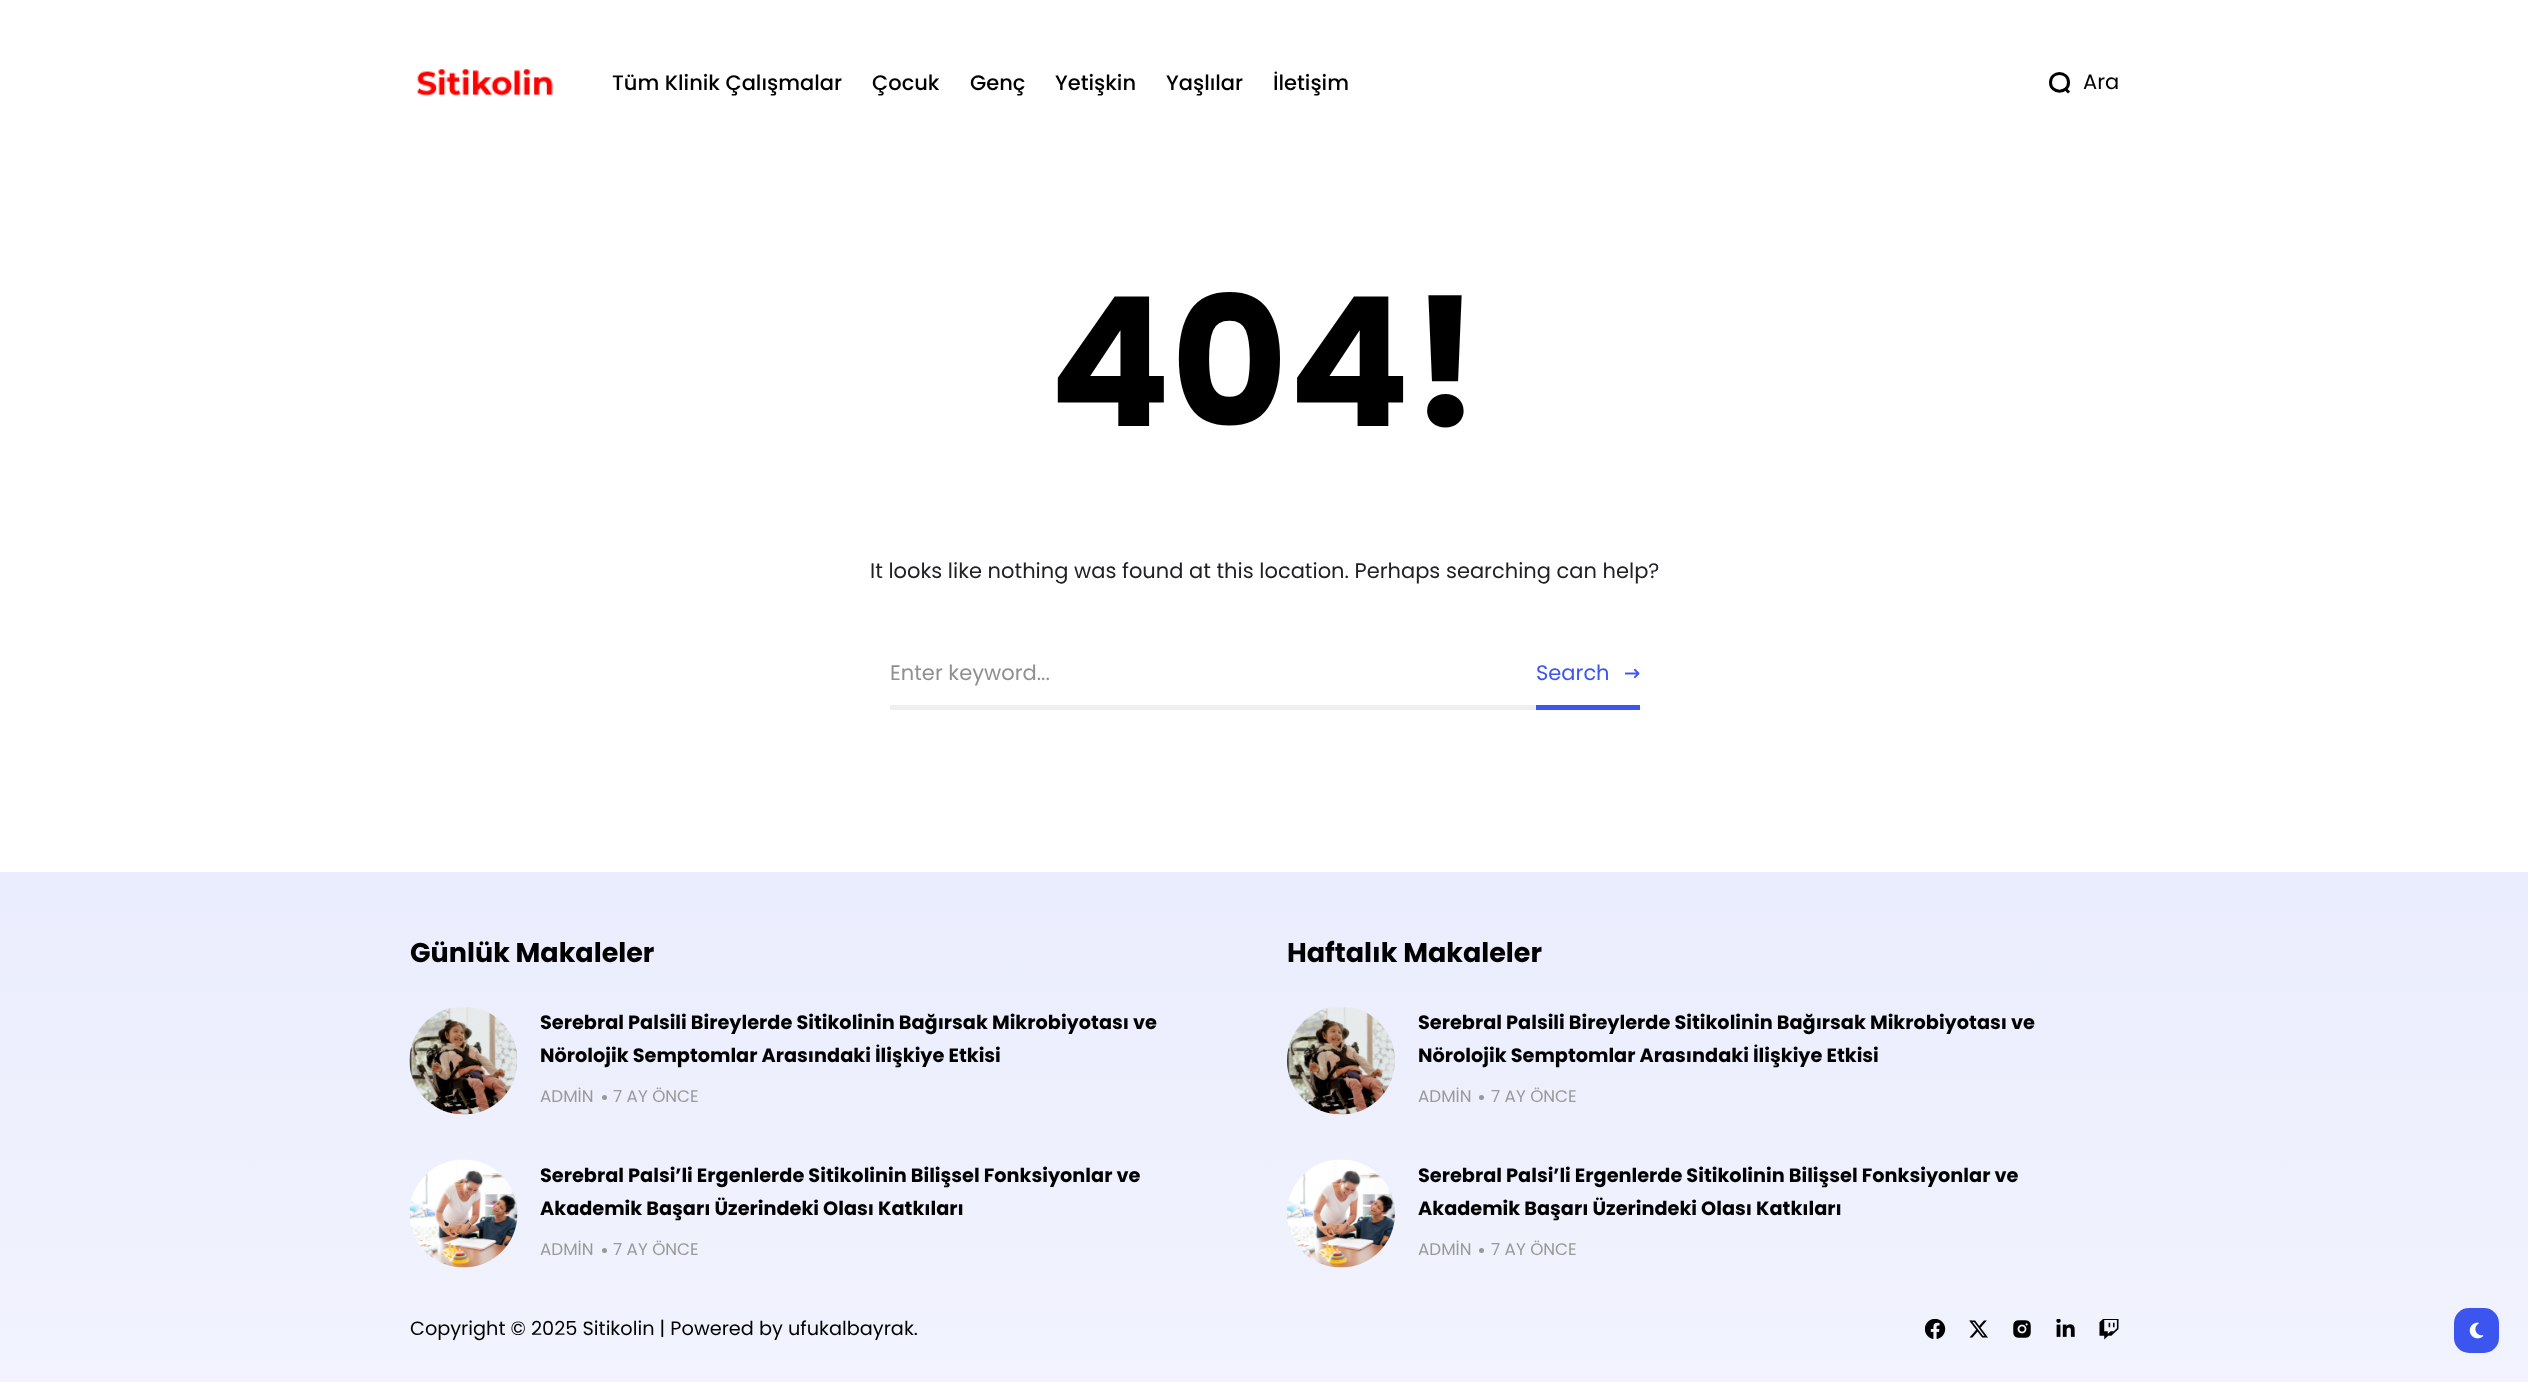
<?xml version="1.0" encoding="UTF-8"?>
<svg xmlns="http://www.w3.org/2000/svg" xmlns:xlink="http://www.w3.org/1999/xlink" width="2528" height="1382">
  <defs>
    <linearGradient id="g1" gradientUnits="userSpaceOnUse" x1="1265" y1="-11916" x2="1265" y2="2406"><stop offset="0" stop-color="#3d55ef" /><stop offset="1" stop-color="#ffffff" /></linearGradient>
  </defs>
  <rect width="100%" height="100%" fill="#ffffff" />
  <image x="416" y="69" width="137" height="27" xlink:href="image1.png" />
  <path d="M 2050.5 82.5 c 0 11.5 18 11.5 18 0 c 0 -12 -18 -12 -18 0 m 15 6.5 l 3.5 3.5" fill="none" stroke="#000000" stroke-width="3" />
  <rect x="890" y="705" width="646" height="5" fill="#efefef" />
  <rect x="1536" y="705" width="104" height="5" fill="#3d55ef" />
  <image x="1625" y="668" width="15" height="11" xlink:href="image2.png" />
  <rect y="872" width="2528" height="510" fill="url(#g1)" />
  <image x="409" y="1007" width="109" height="108" xlink:href="image3.png" />
  <circle cx="604.5" cy="1097.5" r="2.5" fill="#999999" />
  <image x="409" y="1159" width="109" height="109" xlink:href="image4.png" />
  <circle cx="604.5" cy="1250.5" r="2.5" fill="#999999" />
  <image x="1287" y="1007" width="108" height="108" xlink:href="image5.png" />
  <circle cx="1481.5" cy="1097.5" r="2.5" fill="#999999" />
  <image x="1287" y="1159" width="108" height="109" xlink:href="image6.png" />
  <circle cx="1481.5" cy="1250.5" r="2.5" fill="#999999" />
  <image x="1925" y="1319" width="21" height="20" xlink:href="image7.png" />
  <image x="1969" y="1320" width="19" height="18" xlink:href="image8.png" />
  <image x="2013" y="1320" width="18" height="18" xlink:href="image9.png" />
  <image x="2056" y="1319" width="19" height="18" xlink:href="image10.png" />
  <image x="2099" y="1319" width="20" height="21" xlink:href="image11.png" />
  <rect x="2454" y="1308" width="45" height="45" rx="15" fill="#3d55ef" />
  <image x="2469" y="1322" width="15" height="17" xlink:href="image12.png" />
  <text x="612" y="90" style="font-family: Poppins; font-size: 21px; font-weight: 500; fill: #000000">Tüm Klinik Çalışmalar</text>
  <text x="872" y="90" style="font-family: Poppins; font-size: 21px; font-weight: 500; fill: #000000">Çocuk</text>
  <text x="970" y="90" style="font-family: Poppins; font-size: 21px; font-weight: 500; fill: #000000">Genç</text>
  <text x="1055" y="90" style="font-family: Poppins; font-size: 21px; font-weight: 500; fill: #000000">Yetişkin</text>
  <text x="1166" y="90" style="font-family: Poppins; font-size: 21px; font-weight: 500; fill: #000000">Yaşlılar</text>
  <text x="1273" y="90" style="font-family: Poppins; font-size: 21px; font-weight: 500; fill: #000000">İletişim</text>
  <text x="2083" y="89" style="font-family: Poppins; font-size: 21px; fill: #000000">Ara</text>
  <text x="1049" y="426" style="font-family: Poppins; font-size: 180px; font-weight: bold; fill: #000000">404!</text>
  <text x="870" y="578" style="font-family: Poppins; font-size: 21px; fill: #202124">It looks like nothing was found at this location. Perhaps searching can help?</text>
  <text x="890" y="680" style="font-family: Poppins; font-size: 21px; fill: #909092">Enter keyword...</text>
  <text x="1536" y="680" style="font-family: Poppins; font-size: 21px; fill: #3d55ef">Search</text>
  <text x="410" y="962" style="font-family: Poppins; font-size: 27px; font-weight: bold; fill: #000000">Günlük Makaleler</text>
  <text x="540" y="1029" style="font-family: Poppins; font-size: 19.3px; font-weight: bold; fill: #000000">Serebral Palsili Bireylerde Sitikolinin Bağırsak Mikrobiyotası ve</text>
  <text x="540" y="1062" style="font-family: Poppins; font-size: 19.3px; font-weight: bold; fill: #000000">Nörolojik Semptomlar Arasındaki İlişkiye Etkisi</text>
  <text x="540" y="1102" style="font-family: Poppins; font-size: 16.75px; fill: #999999">ADMİN</text>
  <text x="613" y="1102" style="font-family: Poppins; font-size: 16.75px; fill: #999999">7 AY ÖNCE</text>
  <text x="540" y="1182" style="font-family: Poppins; font-size: 19.3px; font-weight: bold; fill: #000000">Serebral Palsi’li Ergenlerde Sitikolinin Bilişsel Fonksiyonlar ve</text>
  <text x="540" y="1215" style="font-family: Poppins; font-size: 19.3px; font-weight: bold; fill: #000000">Akademik Başarı Üzerindeki Olası Katkıları</text>
  <text x="540" y="1255" style="font-family: Poppins; font-size: 16.75px; fill: #999999">ADMİN</text>
  <text x="613" y="1255" style="font-family: Poppins; font-size: 16.75px; fill: #999999">7 AY ÖNCE</text>
  <text x="1287" y="962" style="font-family: Poppins; font-size: 27px; font-weight: bold; fill: #000000">Haftalık Makaleler</text>
  <text x="1418" y="1029" style="font-family: Poppins; font-size: 19.3px; font-weight: bold; fill: #000000">Serebral Palsili Bireylerde Sitikolinin Bağırsak Mikrobiyotası ve</text>
  <text x="1418" y="1062" style="font-family: Poppins; font-size: 19.3px; font-weight: bold; fill: #000000">Nörolojik Semptomlar Arasındaki İlişkiye Etkisi</text>
  <text x="1418" y="1102" style="font-family: Poppins; font-size: 16.75px; fill: #999999">ADMİN</text>
  <text x="1491" y="1102" style="font-family: Poppins; font-size: 16.75px; fill: #999999">7 AY ÖNCE</text>
  <text x="1418" y="1182" style="font-family: Poppins; font-size: 19.3px; font-weight: bold; fill: #000000">Serebral Palsi’li Ergenlerde Sitikolinin Bilişsel Fonksiyonlar ve</text>
  <text x="1418" y="1215" style="font-family: Poppins; font-size: 19.3px; font-weight: bold; fill: #000000">Akademik Başarı Üzerindeki Olası Katkıları</text>
  <text x="1418" y="1255" style="font-family: Poppins; font-size: 16.75px; fill: #999999">ADMİN</text>
  <text x="1491" y="1255" style="font-family: Poppins; font-size: 16.75px; fill: #999999">7 AY ÖNCE</text>
  <text x="410" y="1335" style="font-family: Poppins; font-size: 19.3px; fill: #000000">Copyright © 2025 Sitikolin | Powered by ufukalbayrak.</text>
</svg>
